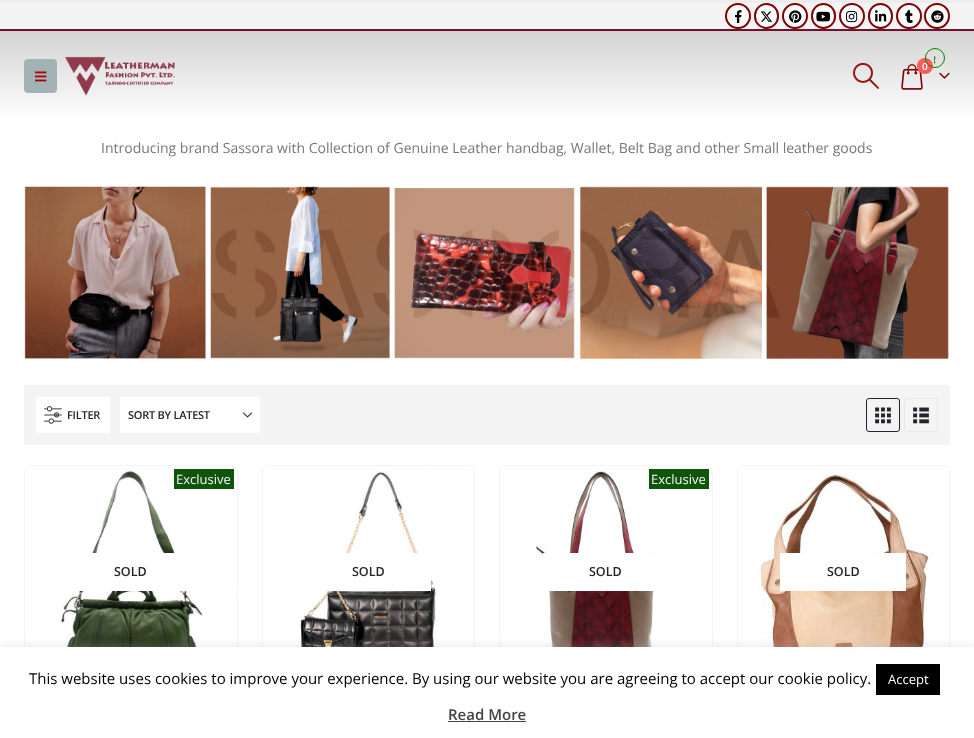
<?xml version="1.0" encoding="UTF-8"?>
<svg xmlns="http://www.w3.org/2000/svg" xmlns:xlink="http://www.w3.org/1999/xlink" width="974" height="738">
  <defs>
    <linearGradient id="g1" gradientUnits="userSpaceOnUse" x1="487" y1="31" x2="487" y2="121"><stop offset="0" stop-color="#d3d3d3" /><stop offset="1" stop-color="#ffffff" /></linearGradient>
  </defs>
  <rect width="100%" height="100%" fill="#ffffff" />
  <rect width="974" height="3" fill="#ededed" />
  <rect y="3" width="974" height="26" fill="#f4f4f4" />
  <rect y="29" width="974" height="2" fill="#750f2d" />
  <circle cx="738" cy="16" r="12" fill="#ffffff" stroke="#800000" stroke-width="2" />
  <image x="735" y="10" width="7" height="13" xlink:href="image1.png" />
  <rect x="755" y="4" width="23" height="24" rx="11.5" fill="#ffffff" stroke="#800000" stroke-width="2" />
  <image x="760" y="11" width="12" height="11" xlink:href="image2.png" />
  <circle cx="795" cy="16" r="12" fill="#ffffff" stroke="#800000" stroke-width="2" />
  <image x="789" y="10" width="13" height="13" xlink:href="image3.png" />
  <rect x="812" y="4" width="23" height="24" rx="11.5" fill="#ffffff" stroke="#800000" stroke-width="2" />
  <image x="816" y="11" width="15" height="11" xlink:href="image4.png" />
  <circle cx="852" cy="16" r="12" fill="#ffffff" stroke="#800000" stroke-width="2" />
  <image x="846" y="11" width="12" height="12" xlink:href="image5.png" />
  <rect x="869" y="4" width="23" height="24" rx="11.5" fill="#ffffff" stroke="#800000" stroke-width="2" />
  <image x="875" y="10" width="12" height="12" xlink:href="image6.png" />
  <circle cx="909" cy="16" r="12" fill="#ffffff" stroke="#800000" stroke-width="2" />
  <image x="905" y="10" width="8" height="13" xlink:href="image7.png" />
  <circle cx="937" cy="16" r="12" fill="#ffffff" stroke="#800000" stroke-width="2" />
  <image x="931" y="10" width="13" height="13" xlink:href="image8.png" />
  <rect y="31" width="974" height="85" fill="url(#g1)" />
  <rect x="24" y="59" width="33" height="34" rx="4" fill="#a3b2b7" />
  <image x="35" y="71" width="12" height="11" xlink:href="image9.png" />
  <image x="65" y="56" width="110" height="40" xlink:href="image10.png" />
  <image x="853" y="62" width="26" height="27" xlink:href="image11.png" />
  <image x="901" y="64" width="22" height="26" xlink:href="image12.png" />
  <circle cx="925" cy="66" r="8" fill="#ff5b5b" />
  <image x="939" y="72" width="11" height="7" xlink:href="image13.png" />
  <image x="24" y="186" width="925" height="173" xlink:href="image14.png" />
  <rect x="24" y="385" width="926" height="60" fill="#f4f4f4" />
  <rect x="36" y="397" width="74" height="36" fill="#ffffff" />
  <image x="44" y="406" width="18" height="18" xlink:href="image15.png" />
  <rect x="120" y="397" width="140" height="36" fill="#ffffff" />
  <image x="243" y="412" width="9" height="6" xlink:href="image16.png" />
  <rect x="866.5" y="398.5" width="33" height="33" rx="2.5" fill="none" stroke="#222529" />
  <image x="875" y="407" width="16" height="17" xlink:href="image17.png" />
  <rect x="904.5" y="398.5" width="33" height="33" rx="2.5" fill="none" stroke="#e7e7e7" />
  <image x="913" y="407" width="16" height="17" xlink:href="image18.png" />
  <rect x="24.5" y="465.5" width="213" height="213" rx="6.5" fill="none" stroke="#f4f4f4" />
  <image x="61" y="469" width="172" height="178" xlink:href="image19.png" />
  <rect x="174" y="469" width="60" height="20" fill="#0e540b" />
  <rect x="77" y="553" width="110" height="38" fill="#ffffff" />
  <rect x="262.5" y="465.5" width="212" height="213" rx="6.5" fill="none" stroke="#f4f4f4" />
  <image x="299" y="469" width="138" height="178" xlink:href="image20.png" />
  <rect x="323" y="553" width="108" height="38" fill="#ffffff" />
  <rect x="499.5" y="465.5" width="213" height="213" rx="6.5" fill="none" stroke="#f4f4f4" />
  <image x="536" y="469" width="125" height="178" xlink:href="image21.png" />
  <rect x="649" y="469" width="60" height="20" fill="#0e540b" />
  <rect x="543" y="553" width="118" height="38" fill="#ffffff" />
  <rect x="737.5" y="465.5" width="212" height="213" rx="6.5" fill="none" stroke="#f4f4f4" />
  <image x="752" y="469" width="180" height="178" xlink:href="image22.png" />
  <rect x="780" y="553" width="126" height="38" fill="#ffffff" />
  <rect y="646" width="974" height="91" fill="#acabab" fill-opacity="0.3" filter="blur(5px)" />
  <rect y="647" width="974" height="91" fill="#ffffff" />
  <rect x="876" y="664" width="64" height="31" fill="#000000" />
  <rect x="448" y="721" width="78" height="1" fill="#444444" />
  <text x="922" y="70" style="font-family: Open Sans; font-size: 10px; font-weight: 600; fill: #ffffff">0</text>
  <circle cx="935" cy="58" r="9.5" fill="none" stroke="#008000" />
  <text x="933" y="63" style="font-family: Liberation Serif; font-size: 10px; font-weight: bold; fill: #008000">!</text>
  <text x="101" y="153" style="font-family: Open Sans; font-size: 14px; fill: #777777">Introducing brand Sassora with Collection of Genuine Leather handbag, Wallet, Belt Bag and other Small leather goods</text>
  <text x="67" y="419" style="font-family: Open Sans; font-size: 11px; font-weight: 600; letter-spacing: -0.25px; fill: #222529">FILTER</text>
  <text x="128" y="419" style="font-family: Open Sans; font-size: 11px; font-weight: 600; letter-spacing: -0.25px; fill: #222529">SORT BY LATEST</text>
  <text x="176" y="484" style="font-family: Open Sans; font-size: 13px; fill: #f7f7f7">Exclusive</text>
  <text x="114" y="576" style="font-family: Open Sans; font-size: 12.5px; font-weight: 600; fill: #222529">SOLD</text>
  <text x="352" y="576" style="font-family: Open Sans; font-size: 12.5px; font-weight: 600; fill: #222529">SOLD</text>
  <text x="651" y="484" style="font-family: Open Sans; font-size: 13px; fill: #f7f7f7">Exclusive</text>
  <text x="589" y="576" style="font-family: Open Sans; font-size: 12.5px; font-weight: 600; fill: #222529">SOLD</text>
  <text x="827" y="576" style="font-family: Open Sans; font-size: 12.5px; font-weight: 600; fill: #222529">SOLD</text>
  <text x="29" y="684" style="font-family: Open Sans; font-size: 15px; fill: #000000">This website uses cookies to improve your experience. By using our website you are agreeing to accept our cookie policy.</text>
  <text x="888" y="684" style="font-family: Open Sans; font-size: 13px; fill: #ffffff">Accept</text>
  <text x="448" y="720" style="font-family: Open Sans; font-size: 15px; font-weight: 600; fill: #444444">Read More</text>
</svg>
